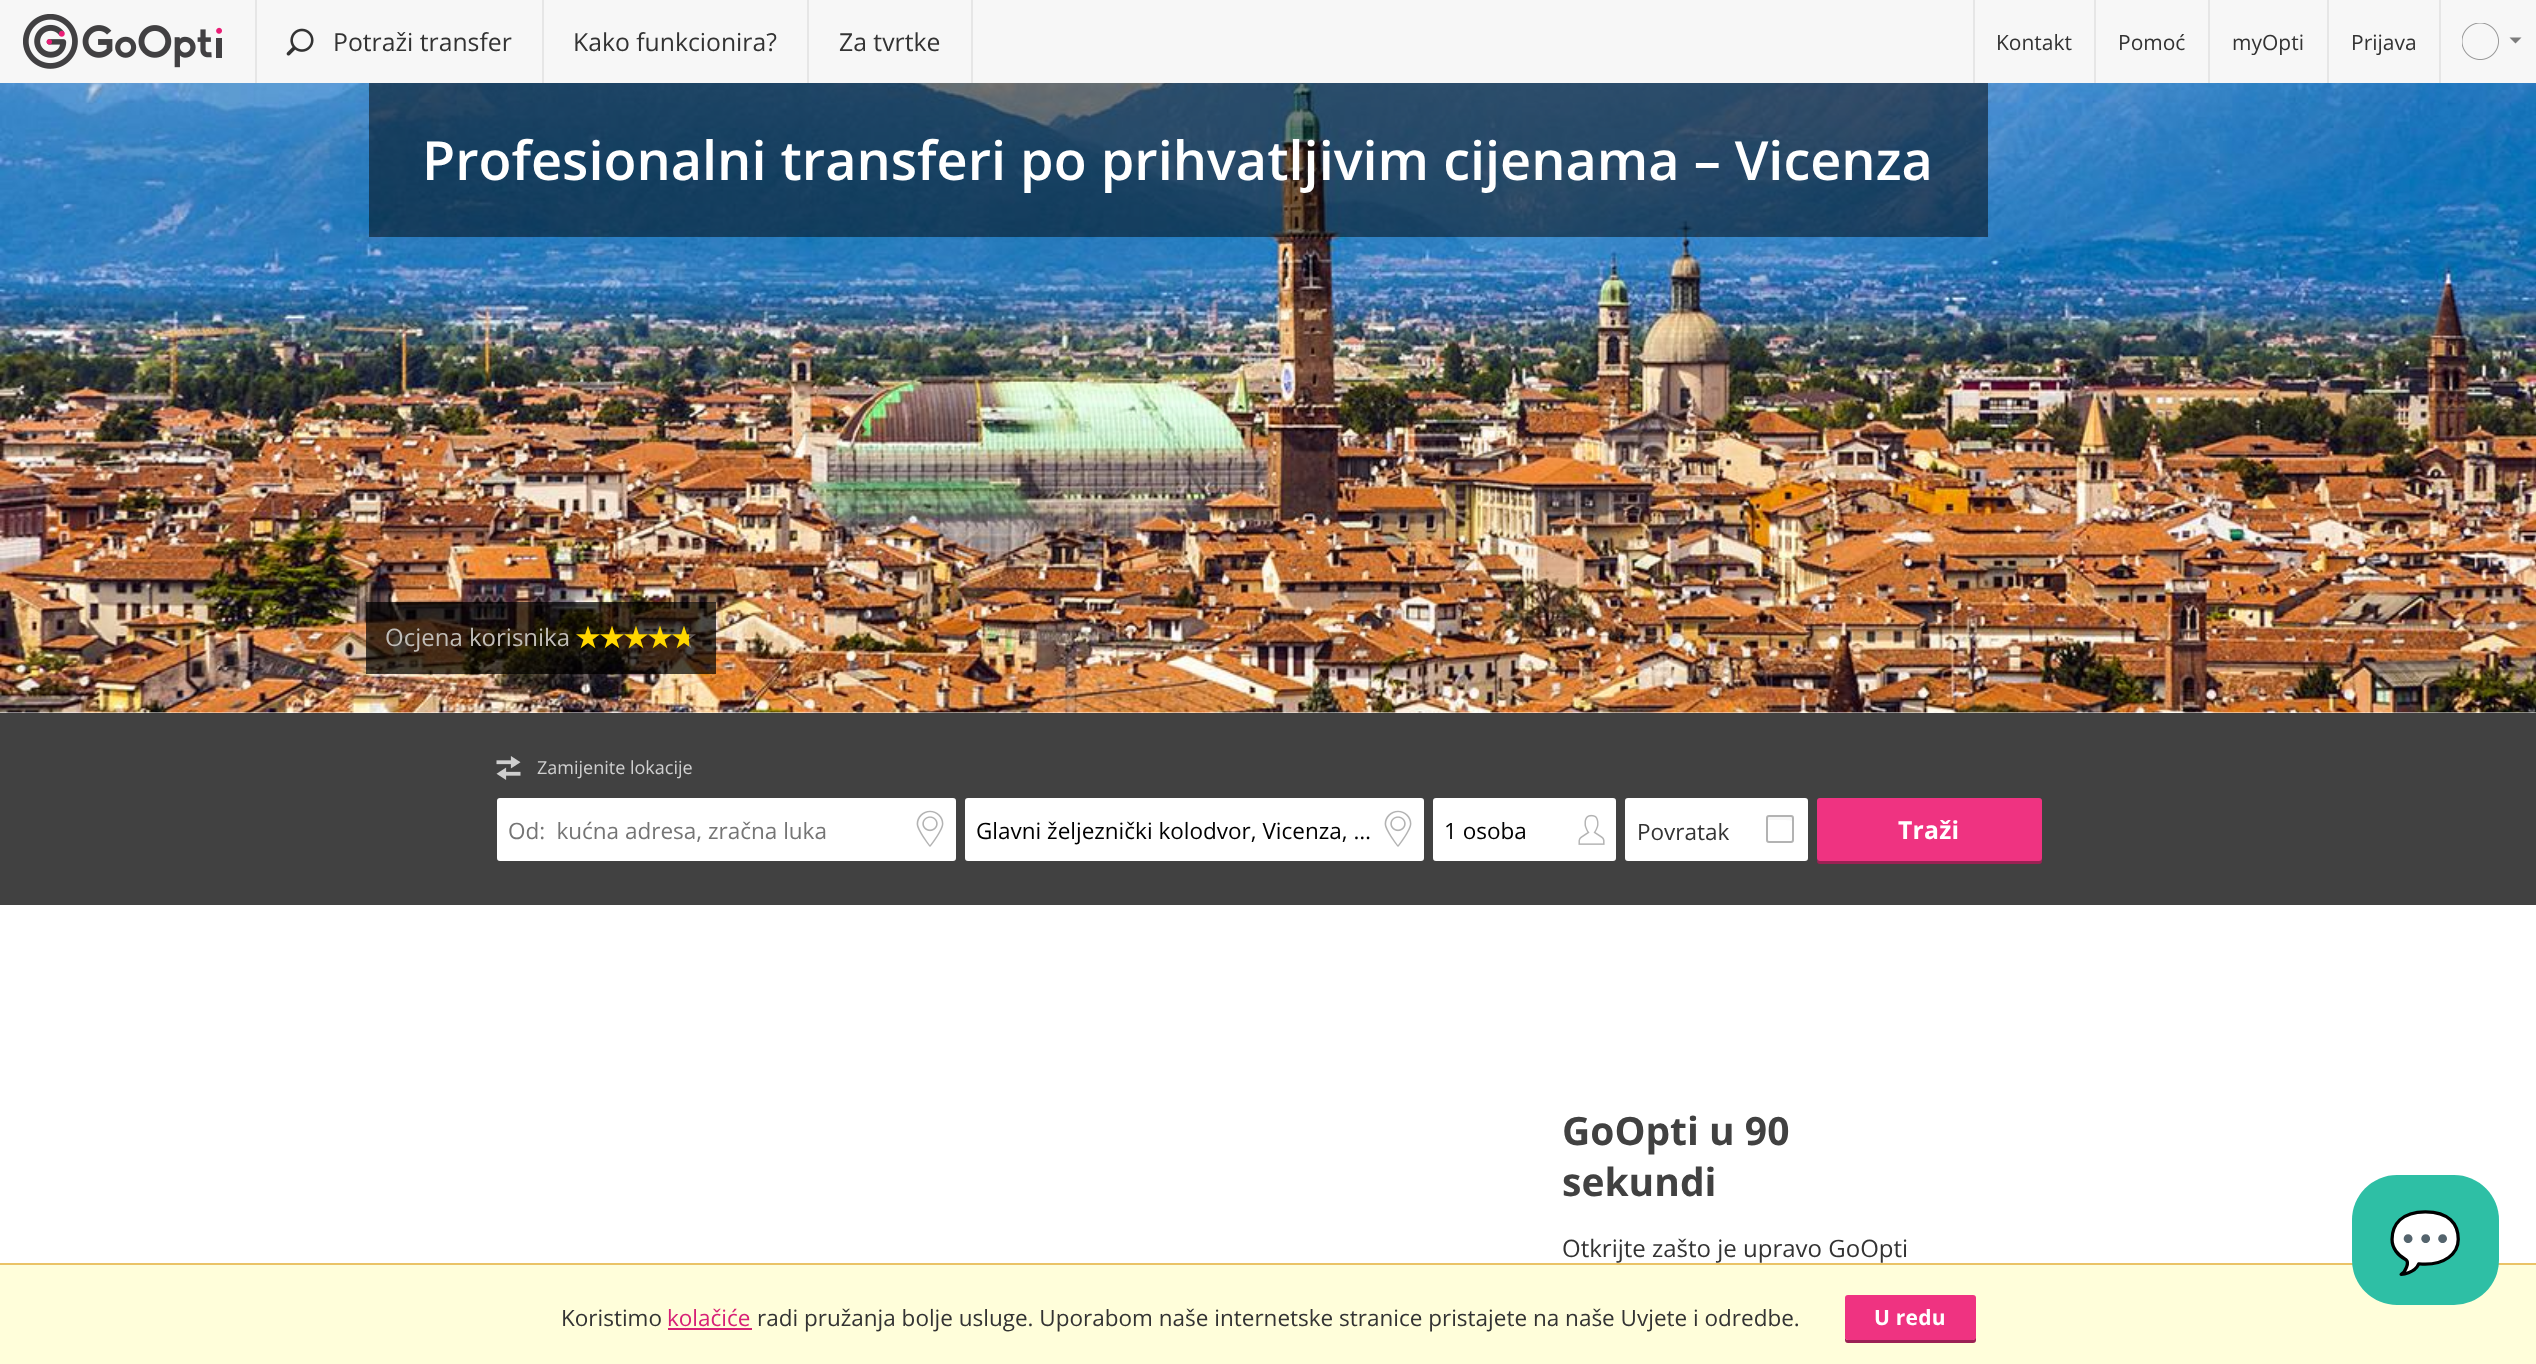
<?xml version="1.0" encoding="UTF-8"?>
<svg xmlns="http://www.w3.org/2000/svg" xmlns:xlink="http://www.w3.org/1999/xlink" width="2536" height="1364">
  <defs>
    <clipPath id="clip1"><path d="M 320 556 h 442 v 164 h -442 z m 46 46 h 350 v 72 h -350 z" clip-rule="evenodd" /></clipPath>
  </defs>
  <rect width="100%" height="100%" fill="#ffffff" />
  <rect width="2536" height="83" fill="#f7f7f7" />
  <image x="23" y="14" width="199" height="55" xlink:href="image1.png" />
  <image x="2462" y="23" width="37" height="37" xlink:href="image2.png" />
  <path d="M 2509.5 37.5 h 12 l -6 6 z" fill="#7c7c7c" />
  <rect x="542" width="2" height="83" fill="#e6e6e6" />
  <rect x="255" width="2" height="83" fill="#e6e6e6" />
  <image x="286" y="28" width="28" height="28" xlink:href="image3.png" />
  <rect x="807" width="2" height="83" fill="#e6e6e6" />
  <rect x="971" width="2" height="83" fill="#e6e6e6" />
  <rect x="2094" width="2" height="83" fill="#e6e6e6" />
  <rect x="1973" width="2" height="83" fill="#e6e6e6" />
  <rect x="2208" width="2" height="83" fill="#e6e6e6" />
  <rect x="2327" width="2" height="83" fill="#e6e6e6" />
  <rect x="2439" width="2" height="83" fill="#e6e6e6" />
  <rect y="1265" width="2536" height="99" fill="#fffeda" />
  <rect y="1263" width="2536" height="2" fill="#eac367" />
  <rect x="668" y="1328" width="84" height="2" fill="#d72076" />
  <path d="M 1845 1336 v 4 c 0 2 1 3 3 3 h 125 c 2 0 3 -1 3 -3 v -39 v -2 v 37 c 0 2 -2 4 -4 4 h -124 c -2 0 -3 -2 -3 -4 z" fill="#9b2154" />
  <rect x="1845" y="1295" width="131" height="45" rx="3" fill="#ef3381" />
  <image x="0" y="83" width="2536" height="630" xlink:href="image4.png" />
  <rect x="369" y="83" width="1619" height="154" fill="#000000" fill-opacity="0.5" />
  <g clip-path="url(#clip1)">
    <rect x="366" y="602" width="350" height="72" fill="#ffffff" fill-opacity="0.1" filter="blur(15px)" />
  </g>
  <rect x="366" y="602" width="350" height="72" fill="#000000" fill-opacity="0.7" />
  <image x="576" y="626" width="113" height="23" xlink:href="image5.png" />
  <image x="689" y="634" width="7" height="15" xlink:href="image6.png" />
  <rect y="713" width="2536" height="192" fill="#414141" />
  <image x="496" y="756" width="25" height="24" xlink:href="image7.png" />
  <rect x="498" y="799" width="457" height="61" rx="2" fill="#ffffff" stroke="#ffffff" stroke-width="2" />
  <image x="916" y="810" width="28" height="37" xlink:href="image8.png" />
  <rect x="966" y="799" width="457" height="61" rx="2" fill="#ffffff" stroke="#ffffff" stroke-width="2" />
  <image x="1384" y="810" width="28" height="37" xlink:href="image8.png" />
  <rect x="1434" y="799" width="181" height="61" rx="2" fill="#ffffff" stroke="#ffffff" stroke-width="2" />
  <image x="1578" y="814" width="27" height="31" xlink:href="image9.png" />
  <rect x="1626" y="799" width="181" height="61" rx="2" fill="#ffffff" stroke="#ffffff" stroke-width="2" />
  <path d="M 1768 820 c 4 0 23 0 24 1 c 0 7 0 14 0.5 20.5 c 1 -0.5 0.5 -4.5 0.5 -5 v -7.5 c 0 -16 3 -13 -13 -13 h -7.5 c -6 0 -5.5 -0.5 -5.5 5.5 c 0 -1 0.5 -1.5 1 -1.5 z" fill="#f7f7f7" />
  <rect x="1767" y="816" width="26" height="26" rx="2" fill="none" stroke="#b3b3b3" stroke-width="2" />
  <path d="M 1817 860 v 1 c 0 2 1 3 3 3 h 219 c 2 0 3 -1 3 -3 v -57 v -2 v 56 c 0 2 -2 3 -4 3 h -218 c -2 0 -2 -1 -3 -1 z" fill="#9b2154" />
  <rect x="1817" y="798" width="225" height="63" rx="3" fill="#ef3381" />
  <rect x="2352" y="1175" width="147" height="130" rx="45" fill="#2ebfa5" />
  <text x="333" y="51" style="font-family: Open Sans; font-size: 24.75px; fill: #333333">Potraži transfer</text>
  <text x="573" y="51" style="font-family: Open Sans; font-size: 24.75px; fill: #333333">Kako funkcionira?</text>
  <text x="839" y="51" style="font-family: Open Sans; font-size: 24.75px; fill: #333333">Za tvrtke</text>
  <text x="1996" y="50" style="font-family: Open Sans; font-size: 21px; fill: #333333">Kontakt</text>
  <text x="2118" y="50" style="font-family: Open Sans; font-size: 21px; fill: #333333">Pomoć</text>
  <text x="2232" y="50" style="font-family: Open Sans; font-size: 21px; fill: #333333">myOpti</text>
  <text x="2351" y="50" style="font-family: Open Sans; font-size: 21px; fill: #333333">Prijava</text>
  <text x="561" y="1326" style="font-family: Open Sans; font-size: 22.5px; fill: #333333">Koristimo</text>
  <text x="667" y="1326" style="font-family: Open Sans; font-size: 22.5px; fill: #d72076">kolačiće</text>
  <text x="757" y="1326" style="font-family: Open Sans; font-size: 22.5px; fill: #333333">radi pružanja bolje usluge. Uporabom naše internetske stranice pristajete na naše Uvjete i odredbe.</text>
  <text x="1874" y="1325" style="font-family: Open Sans; font-size: 21px; font-weight: bold; letter-spacing: 0.25px; fill: #ffffff">U redu</text>
  <text x="422" y="180" style="font-family: Open Sans; font-size: 54px; font-weight: 600; fill: #ffffff">Profesionalni transferi po prihvatljivim cijenama – Vicenza</text>
  <text x="385" y="646" style="font-family: Open Sans; font-size: 24px; fill: #c1bdb8">Ocjena korisnika</text>
  <text x="537" y="774" style="font-family: Open Sans; font-size: 18px; fill: #d0d0d0">Zamijenite lokacije</text>
  <text x="508" y="839" style="font-family: Open Sans; font-size: 22.5px; fill: #757575">Od: kućna adresa, zračna luka</text>
  <text x="976" y="839" style="font-family: Open Sans; font-size: 22.5px; fill: #000000">Glavni željeznički kolodvor, Vicenza, …</text>
  <text x="1444" y="839" style="font-family: Open Sans; font-size: 22.5px; fill: #000000">1 osoba</text>
  <text x="1637" y="840" style="font-family: Open Sans; font-size: 22.5px; fill: #333333">Povratak</text>
  <text x="1898" y="839" style="font-family: Open Sans; font-size: 24.75px; font-weight: bold; letter-spacing: 0.25px; fill: #ffffff">Traži</text>
  <text x="1562" y="1145" style="font-family: Open Sans; font-size: 39px; font-weight: bold; fill: #414141">GoOpti u 90</text>
  <text x="1562" y="1196" style="font-family: Open Sans; font-size: 39px; font-weight: bold; fill: #414141">sekundi</text>
  <text x="1562" y="1257" style="font-family: Open Sans; font-size: 24px; fill: #333333">Otkrijte zašto je upravo GoOpti</text>
  <text x="2388" y="1263" style="font-family: Noto Color Emoji; font-size: 60px; fill: #ffffff">💬</text>
</svg>
